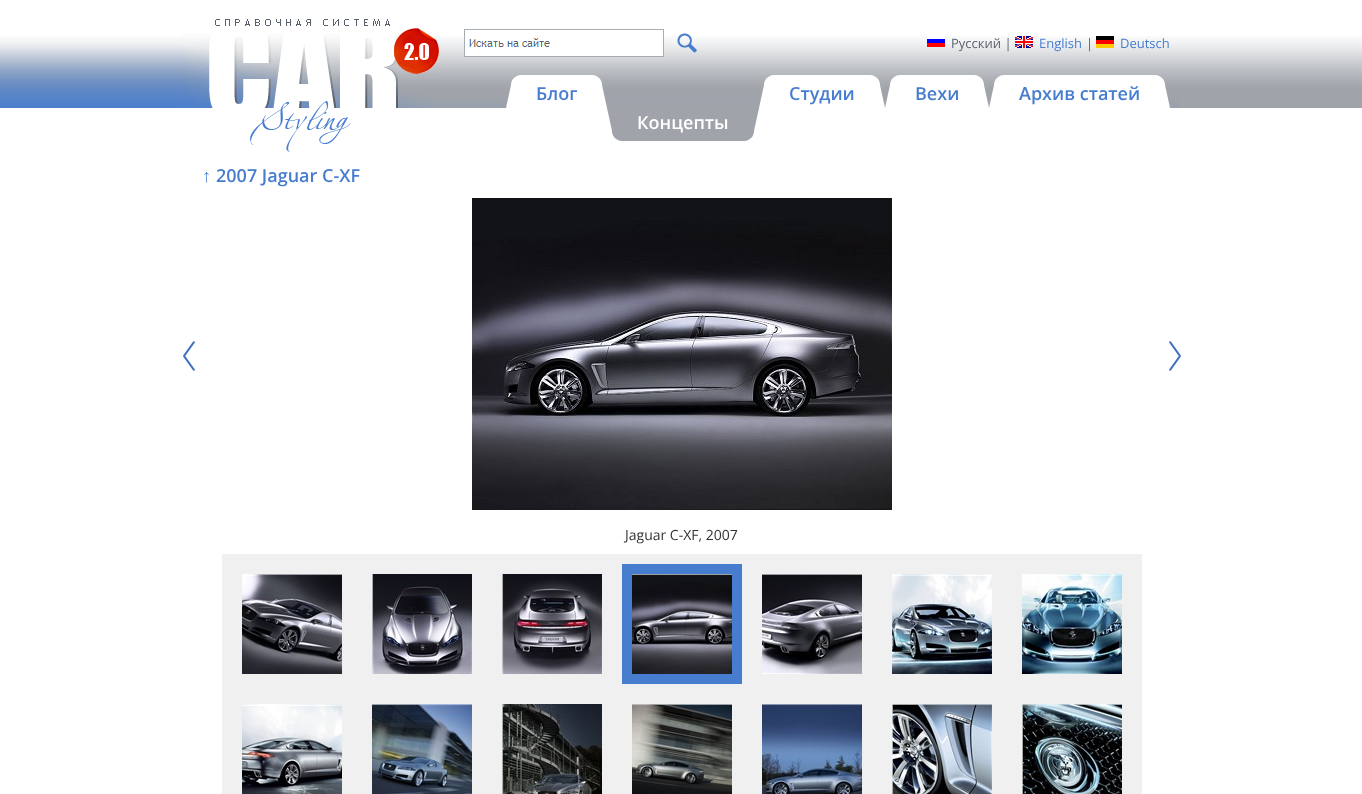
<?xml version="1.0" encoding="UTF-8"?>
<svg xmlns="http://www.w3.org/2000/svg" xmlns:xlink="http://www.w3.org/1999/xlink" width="1362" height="794">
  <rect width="100%" height="100%" fill="#ffffff" />
  <image x="0" y="36" width="182" height="72" xlink:href="image1.png" />
  <image x="440" y="36" width="740" height="72" xlink:href="image2.png" />
  <image x="182" y="19" width="258" height="133" xlink:href="image3.png" />
  <rect x="465" y="36" width="198" height="20" fill="#ffffff" />
  <image x="469" y="38" width="81" height="9" xlink:href="image4.png" />
  <rect x="464.5" y="29.5" width="199" height="27" fill="none" stroke="#a5acb2" />
  <image x="677" y="33" width="20" height="20" xlink:href="image5.png" />
  <image x="927" y="36" width="18" height="11" xlink:href="image6.png" />
  <image x="1015" y="36" width="18" height="12" xlink:href="image7.png" />
  <image x="1096" y="36" width="18" height="12" xlink:href="image8.png" />
  <image x="506" y="75" width="15" height="33" xlink:href="image9.png" />
  <rect x="521" y="75" width="71" height="33" fill="#ffffff" />
  <image x="592" y="75" width="15" height="33" xlink:href="image10.png" />
  <image x="759" y="75" width="15" height="33" xlink:href="image9.png" />
  <rect x="774" y="75" width="96" height="33" fill="#ffffff" />
  <image x="870" y="75" width="15" height="33" xlink:href="image10.png" />
  <image x="885" y="75" width="15" height="33" xlink:href="image9.png" />
  <rect x="900" y="75" width="74" height="33" fill="#ffffff" />
  <image x="974" y="75" width="15" height="33" xlink:href="image10.png" />
  <image x="989" y="75" width="15" height="33" xlink:href="image9.png" />
  <rect x="1004" y="75" width="151" height="33" fill="#ffffff" />
  <image x="1155" y="75" width="15" height="33" xlink:href="image10.png" />
  <image x="607" y="103" width="15" height="38" xlink:href="image11.png" />
  <rect x="622" y="103" width="122" height="38" fill="#a0a4aa" />
  <image x="744" y="103" width="15" height="38" xlink:href="image12.png" />
  <image x="472" y="198" width="420" height="312" xlink:href="image13.png" />
  <image x="183" y="341" width="12" height="30" xlink:href="image14.png" />
  <image x="1169" y="341" width="12" height="30" xlink:href="image15.png" />
  <rect x="222" y="554" width="920" height="240" fill="#f0f0f0" />
  <image x="242" y="574" width="100" height="100" xlink:href="image16.png" />
  <image x="372" y="574" width="100" height="100" xlink:href="image17.png" />
  <image x="502" y="574" width="100" height="100" xlink:href="image18.png" />
  <rect x="622" y="564" width="120" height="120" fill="#477dcf" />
  <image x="632" y="574" width="100" height="100" xlink:href="image19.png" />
  <image x="762" y="574" width="100" height="100" xlink:href="image20.png" />
  <image x="892" y="574" width="100" height="100" xlink:href="image21.png" />
  <image x="1022" y="574" width="100" height="100" xlink:href="image22.png" />
  <image x="242" y="704" width="100" height="90" xlink:href="image23.png" />
  <image x="372" y="704" width="100" height="90" xlink:href="image24.png" />
  <image x="502" y="704" width="100" height="90" xlink:href="image25.png" />
  <image x="632" y="704" width="100" height="90" xlink:href="image26.png" />
  <image x="762" y="704" width="100" height="90" xlink:href="image27.png" />
  <image x="892" y="704" width="100" height="90" xlink:href="image28.png" />
  <image x="1022" y="704" width="100" height="90" xlink:href="image29.png" />
  <image x="1180" y="36" width="182" height="72" xlink:href="image30.png" />
  <text x="951" y="48" style="font-family: Open Sans; font-size: 13px; fill: #59616d">Русский |</text>
  <text x="1039" y="48" style="font-family: Open Sans; font-size: 13px; fill: #477dcf">English</text>
  <text x="1086" y="48" style="font-family: Open Sans; font-size: 13px; fill: #59616d">|</text>
  <text x="1120" y="48" style="font-family: Open Sans; font-size: 13px; fill: #477dcf">Deutsch</text>
  <text x="536" y="100" style="font-family: Open Sans; font-size: 18px; font-weight: 600; fill: #477dcf">Блог</text>
  <text x="789" y="100" style="font-family: Open Sans; font-size: 18px; font-weight: 600; fill: #477dcf">Студии</text>
  <text x="915" y="100" style="font-family: Open Sans; font-size: 18px; font-weight: 600; fill: #477dcf">Вехи</text>
  <text x="1019" y="100" style="font-family: Open Sans; font-size: 18px; font-weight: 600; fill: #477dcf">Архив статей</text>
  <text x="637" y="129" style="font-family: Open Sans; font-size: 18px; font-weight: 600; fill: #ffffff">Концепты</text>
  <text x="202" y="182" style="font-family: Liberation Sans; font-size: 18px; font-weight: bold; fill: #477dcf">↑</text>
  <text x="216" y="182" style="font-family: Open Sans; font-size: 18px; font-weight: 600; fill: #477dcf">2007 Jaguar C-XF</text>
  <text x="625" y="540" style="font-family: Open Sans; font-size: 14px; fill: #333333">Jaguar C-XF, 2007</text>
</svg>
